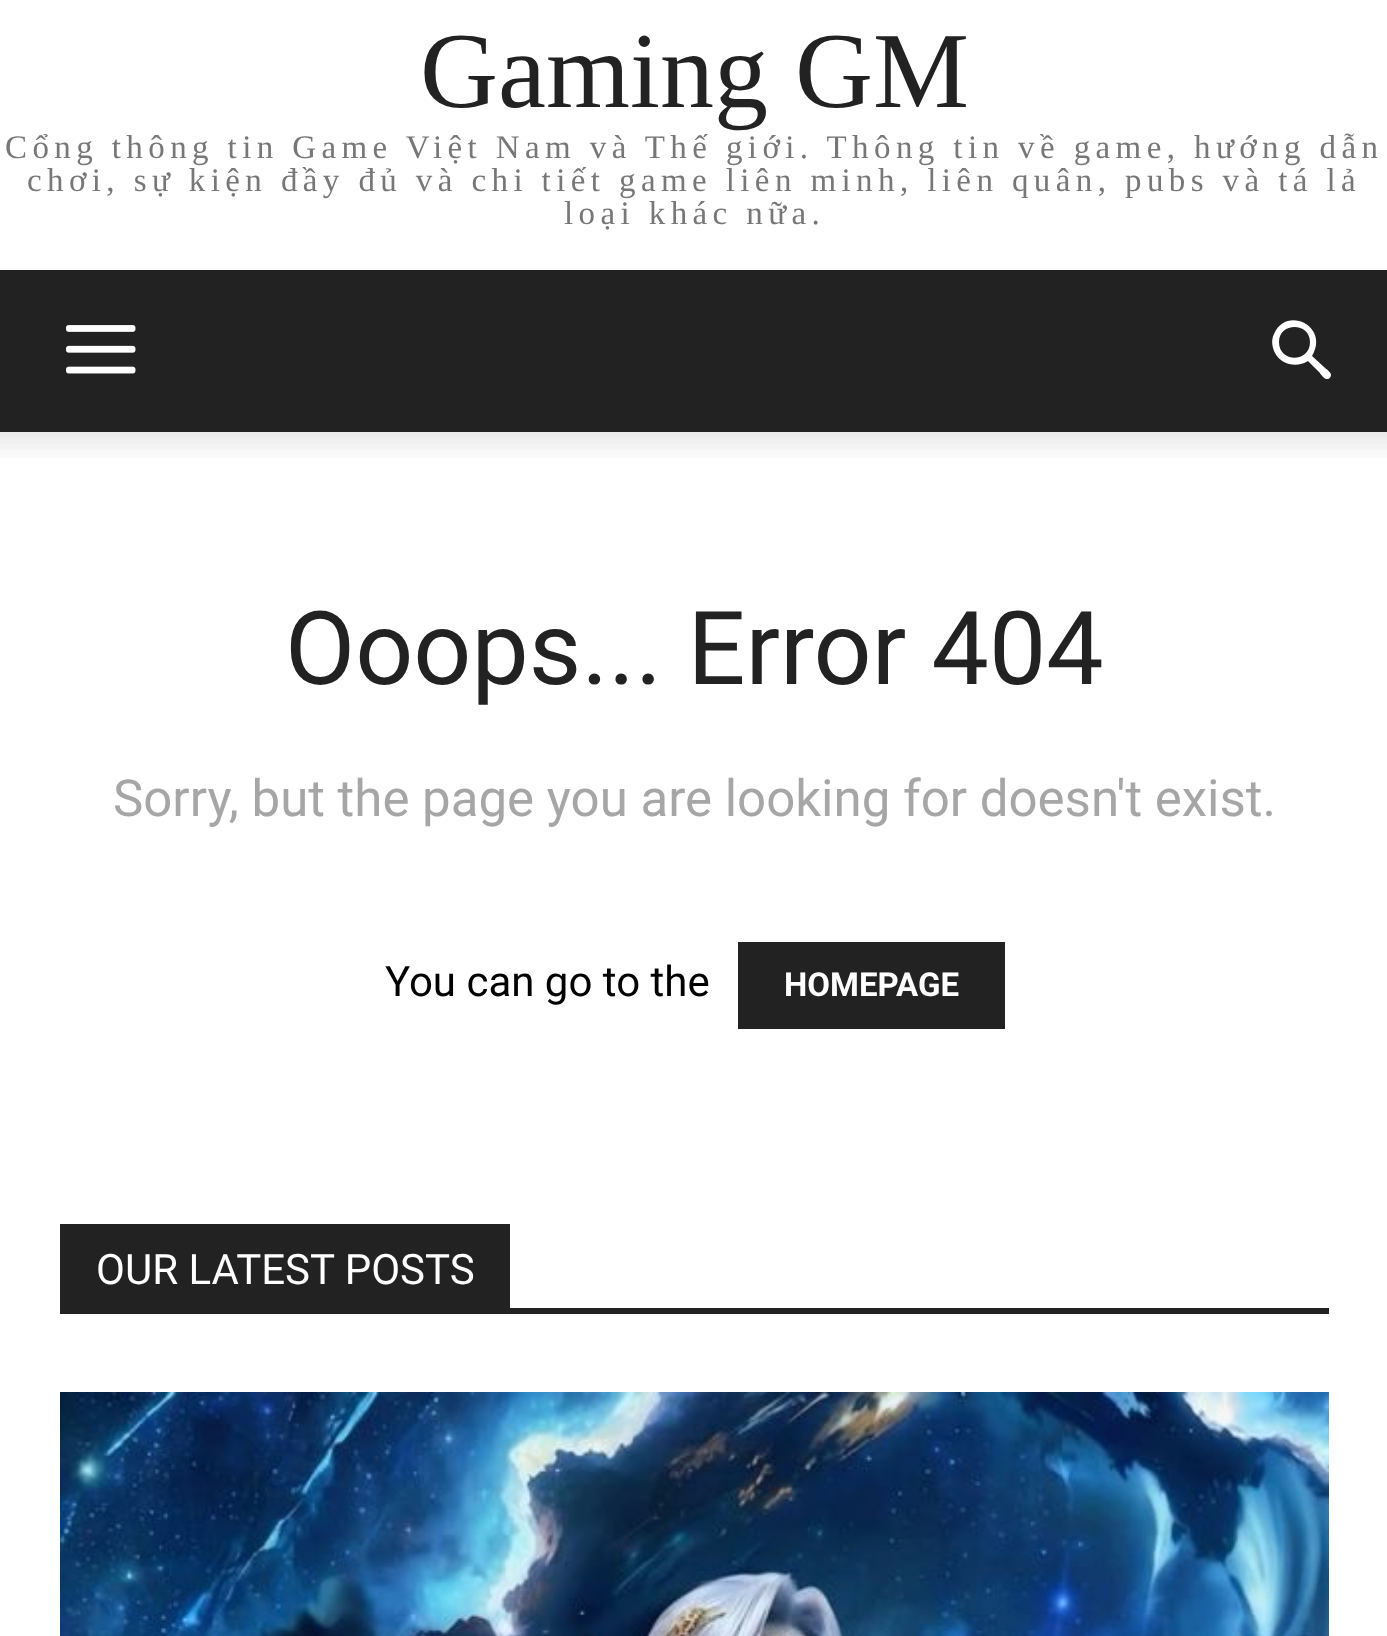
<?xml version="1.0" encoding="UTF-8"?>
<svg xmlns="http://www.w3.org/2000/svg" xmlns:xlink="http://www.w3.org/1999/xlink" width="1387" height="1636">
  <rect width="100%" height="100%" fill="#ffffff" />
  <rect y="270" width="1387" height="162" fill="#222222" />
  <image x="66" y="325" width="70" height="49" xlink:href="image1.png" />
  <path d="M 1310 342 c 0 21 -31 21 -31 0 c 0 -20 31 -20 31 0 z m 21 33 c 0 -3 -5 -6 -7 -8 l -12 -11 c 18 -30 -26 -51 -38 -22 c -3 6 -2 13 1 19 c 6 12 22 15 33 8 l 11 11 c 2 2 5 8 9 7 c 1 0 3 -2 3 -4 z" fill="#ffffff" />
  <image x="0" y="432" width="1387" height="26" xlink:href="image2.png" />
  <rect x="738" y="942" width="267" height="87" fill="#222222" />
  <rect x="60" y="1308" width="1269" height="6" fill="#222222" />
  <rect x="60" y="1224" width="450" height="84" fill="#222222" />
  <image x="60" y="1392" width="1269" height="244" xlink:href="image3.png" />
  <text x="420" y="107" style="font-family: Liberation Serif; font-size: 108px; fill: #222222">Gaming GM</text>
  <text x="5" y="158" style="font-family: Liberation Serif; font-size: 33px; letter-spacing: 5.4px; fill: #777777">Cổng thông tin Game Việt Nam và Thế giới. Thông tin về game, hướng dẫn</text>
  <text x="27" y="191" style="font-family: Liberation Serif; font-size: 33px; letter-spacing: 5.4px; fill: #777777">chơi, sự kiện đầy đủ và chi tiết game liên minh, liên quân, pubs và tá lả</text>
  <text x="564" y="224" style="font-family: Liberation Serif; font-size: 33px; letter-spacing: 5.4px; fill: #777777">loại khác nữa.</text>
  <text x="285" y="684" style="font-family: Roboto; font-size: 102px; fill: #222222">Ooops... Error 404</text>
  <text x="113" y="816" style="font-family: Roboto; font-size: 51px; fill: #a6a6a6">Sorry, but the page you are looking for doesn't exist.</text>
  <text x="385" y="996" style="font-family: Roboto; font-size: 42px; fill: #000000">You can go to the</text>
  <text x="784" y="996" style="font-family: Roboto; font-size: 33px; font-weight: bold; fill: #ffffff">HOMEPAGE</text>
  <text x="96" y="1284" style="font-family: Roboto; font-size: 42px; fill: #ffffff">OUR LATEST POSTS</text>
</svg>
